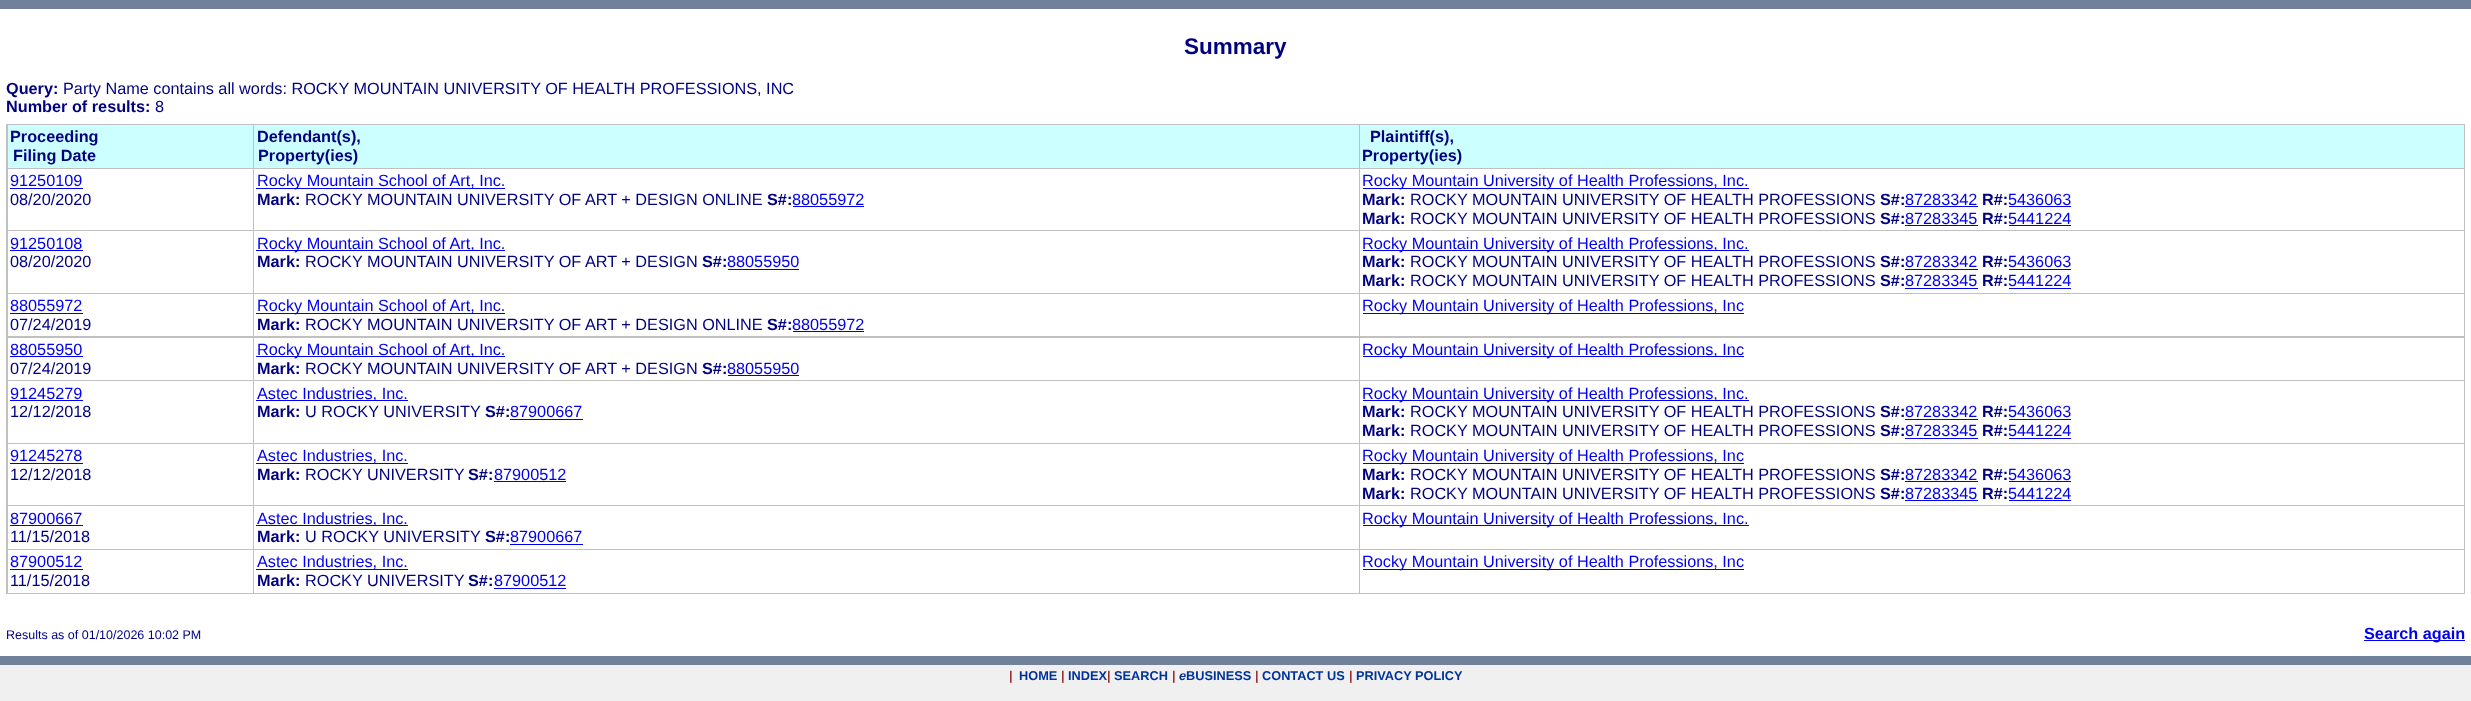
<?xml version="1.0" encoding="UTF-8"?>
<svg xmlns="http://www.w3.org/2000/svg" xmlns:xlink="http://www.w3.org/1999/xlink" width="2471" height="701">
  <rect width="100%" height="100%" fill="#ffffff" />
  <rect width="2471" height="9" fill="#71819b" />
  <rect x="6" y="124" width="2459" height="470" fill="#c0c0c0" />
  <rect x="8" y="125" width="245" height="43" fill="#ccffff" />
  <rect x="254" y="125" width="1105" height="43" fill="#ccffff" />
  <rect x="1360" y="125" width="1104" height="43" fill="#ccffff" />
  <rect x="8" y="169" width="245" height="61" fill="#ffffff" />
  <rect x="10" y="188" width="73" height="1" fill="#0000ee" />
  <rect x="254" y="169" width="1105" height="61" fill="#ffffff" />
  <rect x="256" y="188" width="249" height="1" fill="#0000ee" />
  <rect x="793" y="206" width="71" height="1" fill="#0000ee" />
  <rect x="1360" y="169" width="1104" height="61" fill="#ffffff" />
  <rect x="1363" y="188" width="386" height="1" fill="#0000ee" />
  <rect x="1905" y="206" width="73" height="1" fill="#0000ee" />
  <rect x="2009" y="206" width="62" height="1" fill="#0000ee" />
  <rect x="1905" y="225" width="73" height="1" fill="#0000ee" />
  <rect x="2009" y="225" width="62" height="1" fill="#0000ee" />
  <rect x="8" y="231" width="245" height="62" fill="#ffffff" />
  <rect x="10" y="250" width="73" height="1" fill="#0000ee" />
  <rect x="254" y="231" width="1105" height="62" fill="#ffffff" />
  <rect x="256" y="250" width="249" height="1" fill="#0000ee" />
  <rect x="728" y="269" width="71" height="1" fill="#0000ee" />
  <rect x="1360" y="231" width="1104" height="62" fill="#ffffff" />
  <rect x="1363" y="250" width="386" height="1" fill="#0000ee" />
  <rect x="1905" y="269" width="73" height="1" fill="#0000ee" />
  <rect x="2009" y="269" width="62" height="1" fill="#0000ee" />
  <rect x="1905" y="288" width="73" height="1" fill="#0000ee" />
  <rect x="2009" y="288" width="62" height="1" fill="#0000ee" />
  <rect x="8" y="294" width="245" height="42" fill="#ffffff" />
  <rect x="10" y="313" width="73" height="1" fill="#0000ee" />
  <rect x="254" y="294" width="1105" height="42" fill="#ffffff" />
  <rect x="256" y="313" width="249" height="1" fill="#0000ee" />
  <rect x="793" y="331" width="71" height="1" fill="#0000ee" />
  <rect x="1360" y="294" width="1104" height="42" fill="#ffffff" />
  <rect x="1363" y="313" width="381" height="1" fill="#0000ee" />
  <rect x="8" y="338" width="245" height="42" fill="#ffffff" />
  <rect x="10" y="356" width="73" height="1" fill="#0000ee" />
  <rect x="254" y="338" width="1105" height="42" fill="#ffffff" />
  <rect x="256" y="356" width="249" height="1" fill="#0000ee" />
  <rect x="728" y="375" width="71" height="1" fill="#0000ee" />
  <rect x="1360" y="338" width="1104" height="42" fill="#ffffff" />
  <rect x="1363" y="356" width="381" height="1" fill="#0000ee" />
  <rect x="8" y="381" width="245" height="62" fill="#ffffff" />
  <rect x="10" y="400" width="73" height="1" fill="#0000ee" />
  <rect x="254" y="381" width="1105" height="62" fill="#ffffff" />
  <rect x="256" y="400" width="152" height="1" fill="#0000ee" />
  <rect x="510" y="419" width="73" height="1" fill="#0000ee" />
  <rect x="1360" y="381" width="1104" height="62" fill="#ffffff" />
  <rect x="1363" y="400" width="386" height="1" fill="#0000ee" />
  <rect x="1905" y="419" width="73" height="1" fill="#0000ee" />
  <rect x="2009" y="419" width="62" height="1" fill="#0000ee" />
  <rect x="1905" y="438" width="73" height="1" fill="#0000ee" />
  <rect x="2009" y="438" width="62" height="1" fill="#0000ee" />
  <rect x="8" y="444" width="245" height="61" fill="#ffffff" />
  <rect x="10" y="463" width="73" height="1" fill="#0000ee" />
  <rect x="254" y="444" width="1105" height="61" fill="#ffffff" />
  <rect x="256" y="463" width="152" height="1" fill="#0000ee" />
  <rect x="494" y="481" width="72" height="1" fill="#0000ee" />
  <rect x="1360" y="444" width="1104" height="61" fill="#ffffff" />
  <rect x="1363" y="463" width="381" height="1" fill="#0000ee" />
  <rect x="1905" y="481" width="73" height="1" fill="#0000ee" />
  <rect x="2009" y="481" width="62" height="1" fill="#0000ee" />
  <rect x="1905" y="500" width="73" height="1" fill="#0000ee" />
  <rect x="2009" y="500" width="62" height="1" fill="#0000ee" />
  <rect x="8" y="506" width="245" height="43" fill="#ffffff" />
  <rect x="10" y="525" width="73" height="1" fill="#0000ee" />
  <rect x="254" y="506" width="1105" height="43" fill="#ffffff" />
  <rect x="256" y="525" width="152" height="1" fill="#0000ee" />
  <rect x="510" y="544" width="73" height="1" fill="#0000ee" />
  <rect x="1360" y="506" width="1104" height="43" fill="#ffffff" />
  <rect x="1363" y="525" width="386" height="1" fill="#0000ee" />
  <rect x="8" y="550" width="245" height="43" fill="#ffffff" />
  <rect x="10" y="569" width="73" height="1" fill="#0000ee" />
  <rect x="254" y="550" width="1105" height="43" fill="#ffffff" />
  <rect x="256" y="569" width="152" height="1" fill="#0000ee" />
  <rect x="494" y="588" width="72" height="1" fill="#0000ee" />
  <rect x="1360" y="550" width="1104" height="43" fill="#ffffff" />
  <rect x="1363" y="569" width="381" height="1" fill="#0000ee" />
  <rect x="2364" y="640" width="101" height="1" fill="#0000ee" />
  <rect y="656" width="2471" height="9" fill="#71819b" />
  <rect y="665" width="2471" height="36" fill="#f0f0f0" />
  <text x="1184" y="54" style="font-family: Liberation Sans; font-size: 22.5px; font-weight: bold; fill: #000080">Summary</text>
  <text x="6" y="94" style="font-family: Liberation Sans; font-size: 16.25px; font-weight: bold; fill: #000080">Query:</text>
  <text x="63" y="94" style="font-family: Liberation Sans; font-size: 16.25px; fill: #000080">Party Name contains all words: ROCKY MOUNTAIN UNIVERSITY OF HEALTH PROFESSIONS, INC</text>
  <text x="6" y="112" style="font-family: Liberation Sans; font-size: 16.25px; font-weight: bold; fill: #000080">Number of results:</text>
  <text x="155" y="112" style="font-family: Liberation Sans; font-size: 16.25px; fill: #000080">8</text>
  <text x="10" y="142" style="font-family: Liberation Sans; font-size: 16.25px; font-weight: bold; fill: #000080">Proceeding</text>
  <text x="13" y="161" style="font-family: Liberation Sans; font-size: 16.25px; font-weight: bold; fill: #000080">Filing Date</text>
  <text x="257" y="142" style="font-family: Liberation Sans; font-size: 16.25px; font-weight: bold; fill: #000080">Defendant(s),</text>
  <text x="258" y="161" style="font-family: Liberation Sans; font-size: 16.25px; font-weight: bold; fill: #000080">Property(ies)</text>
  <text x="1370" y="142" style="font-family: Liberation Sans; font-size: 16.25px; font-weight: bold; fill: #000080">Plaintiff(s),</text>
  <text x="1362" y="161" style="font-family: Liberation Sans; font-size: 16.25px; font-weight: bold; fill: #000080">Property(ies)</text>
  <text x="10" y="186" style="font-family: Liberation Sans; font-size: 16.25px; fill: #0000ee">91250109</text>
  <text x="10" y="205" style="font-family: Liberation Sans; font-size: 16.25px; fill: #000080">08/20/2020</text>
  <text x="257" y="186" style="font-family: Liberation Sans; font-size: 16.25px; fill: #0000ee">Rocky Mountain School of Art, Inc.</text>
  <text x="257" y="205" style="font-family: Liberation Sans; font-size: 16.25px; font-weight: bold; fill: #000080">Mark:</text>
  <text x="305" y="205" style="font-family: Liberation Sans; font-size: 16.25px; fill: #000080">ROCKY MOUNTAIN UNIVERSITY OF ART + DESIGN ONLINE</text>
  <text x="767" y="205" style="font-family: Liberation Sans; font-size: 16.25px; font-weight: bold; fill: #000080">S#:</text>
  <text x="792" y="205" style="font-family: Liberation Sans; font-size: 16.25px; fill: #0000ee">88055972</text>
  <text x="1362" y="186" style="font-family: Liberation Sans; font-size: 16.25px; fill: #0000ee">Rocky Mountain University of Health Professions, Inc.</text>
  <text x="1362" y="205" style="font-family: Liberation Sans; font-size: 16.25px; font-weight: bold; fill: #000080">Mark:</text>
  <text x="1410" y="205" style="font-family: Liberation Sans; font-size: 16.25px; fill: #000080">ROCKY MOUNTAIN UNIVERSITY OF HEALTH PROFESSIONS</text>
  <text x="1880" y="205" style="font-family: Liberation Sans; font-size: 16.25px; font-weight: bold; fill: #000080">S#:</text>
  <text x="1905" y="205" style="font-family: Liberation Sans; font-size: 16.25px; fill: #0000ee">87283342</text>
  <text x="1982" y="205" style="font-family: Liberation Sans; font-size: 16.25px; font-weight: bold; fill: #000080">R#:</text>
  <text x="2008" y="205" style="font-family: Liberation Sans; font-size: 16.25px; fill: #0000ee">5436063</text>
  <text x="1362" y="224" style="font-family: Liberation Sans; font-size: 16.25px; font-weight: bold; fill: #000080">Mark:</text>
  <text x="1410" y="224" style="font-family: Liberation Sans; font-size: 16.25px; fill: #000080">ROCKY MOUNTAIN UNIVERSITY OF HEALTH PROFESSIONS</text>
  <text x="1880" y="224" style="font-family: Liberation Sans; font-size: 16.25px; font-weight: bold; fill: #000080">S#:</text>
  <text x="1905" y="224" style="font-family: Liberation Sans; font-size: 16.25px; fill: #0000ee">87283345</text>
  <text x="1982" y="224" style="font-family: Liberation Sans; font-size: 16.25px; font-weight: bold; fill: #000080">R#:</text>
  <text x="2008" y="224" style="font-family: Liberation Sans; font-size: 16.25px; fill: #0000ee">5441224</text>
  <text x="10" y="249" style="font-family: Liberation Sans; font-size: 16.25px; fill: #0000ee">91250108</text>
  <text x="10" y="267" style="font-family: Liberation Sans; font-size: 16.25px; fill: #000080">08/20/2020</text>
  <text x="257" y="249" style="font-family: Liberation Sans; font-size: 16.25px; fill: #0000ee">Rocky Mountain School of Art, Inc.</text>
  <text x="257" y="267" style="font-family: Liberation Sans; font-size: 16.25px; font-weight: bold; fill: #000080">Mark:</text>
  <text x="305" y="267" style="font-family: Liberation Sans; font-size: 16.25px; fill: #000080">ROCKY MOUNTAIN UNIVERSITY OF ART + DESIGN</text>
  <text x="702" y="267" style="font-family: Liberation Sans; font-size: 16.25px; font-weight: bold; fill: #000080">S#:</text>
  <text x="727" y="267" style="font-family: Liberation Sans; font-size: 16.25px; fill: #0000ee">88055950</text>
  <text x="1362" y="249" style="font-family: Liberation Sans; font-size: 16.25px; fill: #0000ee">Rocky Mountain University of Health Professions, Inc.</text>
  <text x="1362" y="267" style="font-family: Liberation Sans; font-size: 16.25px; font-weight: bold; fill: #000080">Mark:</text>
  <text x="1410" y="267" style="font-family: Liberation Sans; font-size: 16.25px; fill: #000080">ROCKY MOUNTAIN UNIVERSITY OF HEALTH PROFESSIONS</text>
  <text x="1880" y="267" style="font-family: Liberation Sans; font-size: 16.25px; font-weight: bold; fill: #000080">S#:</text>
  <text x="1905" y="267" style="font-family: Liberation Sans; font-size: 16.25px; fill: #0000ee">87283342</text>
  <text x="1982" y="267" style="font-family: Liberation Sans; font-size: 16.25px; font-weight: bold; fill: #000080">R#:</text>
  <text x="2008" y="267" style="font-family: Liberation Sans; font-size: 16.25px; fill: #0000ee">5436063</text>
  <text x="1362" y="286" style="font-family: Liberation Sans; font-size: 16.25px; font-weight: bold; fill: #000080">Mark:</text>
  <text x="1410" y="286" style="font-family: Liberation Sans; font-size: 16.25px; fill: #000080">ROCKY MOUNTAIN UNIVERSITY OF HEALTH PROFESSIONS</text>
  <text x="1880" y="286" style="font-family: Liberation Sans; font-size: 16.25px; font-weight: bold; fill: #000080">S#:</text>
  <text x="1905" y="286" style="font-family: Liberation Sans; font-size: 16.25px; fill: #0000ee">87283345</text>
  <text x="1982" y="286" style="font-family: Liberation Sans; font-size: 16.25px; font-weight: bold; fill: #000080">R#:</text>
  <text x="2008" y="286" style="font-family: Liberation Sans; font-size: 16.25px; fill: #0000ee">5441224</text>
  <text x="10" y="311" style="font-family: Liberation Sans; font-size: 16.25px; fill: #0000ee">88055972</text>
  <text x="10" y="330" style="font-family: Liberation Sans; font-size: 16.25px; fill: #000080">07/24/2019</text>
  <text x="257" y="311" style="font-family: Liberation Sans; font-size: 16.25px; fill: #0000ee">Rocky Mountain School of Art, Inc.</text>
  <text x="257" y="330" style="font-family: Liberation Sans; font-size: 16.25px; font-weight: bold; fill: #000080">Mark:</text>
  <text x="305" y="330" style="font-family: Liberation Sans; font-size: 16.25px; fill: #000080">ROCKY MOUNTAIN UNIVERSITY OF ART + DESIGN ONLINE</text>
  <text x="767" y="330" style="font-family: Liberation Sans; font-size: 16.25px; font-weight: bold; fill: #000080">S#:</text>
  <text x="792" y="330" style="font-family: Liberation Sans; font-size: 16.25px; fill: #0000ee">88055972</text>
  <text x="1362" y="311" style="font-family: Liberation Sans; font-size: 16.25px; fill: #0000ee">Rocky Mountain University of Health Professions, Inc</text>
  <text x="10" y="355" style="font-family: Liberation Sans; font-size: 16.25px; fill: #0000ee">88055950</text>
  <text x="10" y="374" style="font-family: Liberation Sans; font-size: 16.25px; fill: #000080">07/24/2019</text>
  <text x="257" y="355" style="font-family: Liberation Sans; font-size: 16.25px; fill: #0000ee">Rocky Mountain School of Art, Inc.</text>
  <text x="257" y="374" style="font-family: Liberation Sans; font-size: 16.25px; font-weight: bold; fill: #000080">Mark:</text>
  <text x="305" y="374" style="font-family: Liberation Sans; font-size: 16.25px; fill: #000080">ROCKY MOUNTAIN UNIVERSITY OF ART + DESIGN</text>
  <text x="702" y="374" style="font-family: Liberation Sans; font-size: 16.25px; font-weight: bold; fill: #000080">S#:</text>
  <text x="727" y="374" style="font-family: Liberation Sans; font-size: 16.25px; fill: #0000ee">88055950</text>
  <text x="1362" y="355" style="font-family: Liberation Sans; font-size: 16.25px; fill: #0000ee">Rocky Mountain University of Health Professions, Inc</text>
  <text x="10" y="399" style="font-family: Liberation Sans; font-size: 16.25px; fill: #0000ee">91245279</text>
  <text x="10" y="417" style="font-family: Liberation Sans; font-size: 16.25px; fill: #000080">12/12/2018</text>
  <text x="257" y="399" style="font-family: Liberation Sans; font-size: 16.25px; fill: #0000ee">Astec Industries, Inc.</text>
  <text x="257" y="417" style="font-family: Liberation Sans; font-size: 16.25px; font-weight: bold; fill: #000080">Mark:</text>
  <text x="305" y="417" style="font-family: Liberation Sans; font-size: 16.25px; fill: #000080">U ROCKY UNIVERSITY</text>
  <text x="485" y="417" style="font-family: Liberation Sans; font-size: 16.25px; font-weight: bold; fill: #000080">S#:</text>
  <text x="510" y="417" style="font-family: Liberation Sans; font-size: 16.25px; fill: #0000ee">87900667</text>
  <text x="1362" y="399" style="font-family: Liberation Sans; font-size: 16.25px; fill: #0000ee">Rocky Mountain University of Health Professions, Inc.</text>
  <text x="1362" y="417" style="font-family: Liberation Sans; font-size: 16.25px; font-weight: bold; fill: #000080">Mark:</text>
  <text x="1410" y="417" style="font-family: Liberation Sans; font-size: 16.25px; fill: #000080">ROCKY MOUNTAIN UNIVERSITY OF HEALTH PROFESSIONS</text>
  <text x="1880" y="417" style="font-family: Liberation Sans; font-size: 16.25px; font-weight: bold; fill: #000080">S#:</text>
  <text x="1905" y="417" style="font-family: Liberation Sans; font-size: 16.25px; fill: #0000ee">87283342</text>
  <text x="1982" y="417" style="font-family: Liberation Sans; font-size: 16.25px; font-weight: bold; fill: #000080">R#:</text>
  <text x="2008" y="417" style="font-family: Liberation Sans; font-size: 16.25px; fill: #0000ee">5436063</text>
  <text x="1362" y="436" style="font-family: Liberation Sans; font-size: 16.25px; font-weight: bold; fill: #000080">Mark:</text>
  <text x="1410" y="436" style="font-family: Liberation Sans; font-size: 16.25px; fill: #000080">ROCKY MOUNTAIN UNIVERSITY OF HEALTH PROFESSIONS</text>
  <text x="1880" y="436" style="font-family: Liberation Sans; font-size: 16.25px; font-weight: bold; fill: #000080">S#:</text>
  <text x="1905" y="436" style="font-family: Liberation Sans; font-size: 16.25px; fill: #0000ee">87283345</text>
  <text x="1982" y="436" style="font-family: Liberation Sans; font-size: 16.25px; font-weight: bold; fill: #000080">R#:</text>
  <text x="2008" y="436" style="font-family: Liberation Sans; font-size: 16.25px; fill: #0000ee">5441224</text>
  <text x="10" y="461" style="font-family: Liberation Sans; font-size: 16.25px; fill: #0000ee">91245278</text>
  <text x="10" y="480" style="font-family: Liberation Sans; font-size: 16.25px; fill: #000080">12/12/2018</text>
  <text x="257" y="461" style="font-family: Liberation Sans; font-size: 16.25px; fill: #0000ee">Astec Industries, Inc.</text>
  <text x="257" y="480" style="font-family: Liberation Sans; font-size: 16.25px; font-weight: bold; fill: #000080">Mark:</text>
  <text x="305" y="480" style="font-family: Liberation Sans; font-size: 16.25px; fill: #000080">ROCKY UNIVERSITY</text>
  <text x="468" y="480" style="font-family: Liberation Sans; font-size: 16.25px; font-weight: bold; fill: #000080">S#:</text>
  <text x="494" y="480" style="font-family: Liberation Sans; font-size: 16.25px; fill: #0000ee">87900512</text>
  <text x="1362" y="461" style="font-family: Liberation Sans; font-size: 16.25px; fill: #0000ee">Rocky Mountain University of Health Professions, Inc</text>
  <text x="1362" y="480" style="font-family: Liberation Sans; font-size: 16.25px; font-weight: bold; fill: #000080">Mark:</text>
  <text x="1410" y="480" style="font-family: Liberation Sans; font-size: 16.25px; fill: #000080">ROCKY MOUNTAIN UNIVERSITY OF HEALTH PROFESSIONS</text>
  <text x="1880" y="480" style="font-family: Liberation Sans; font-size: 16.25px; font-weight: bold; fill: #000080">S#:</text>
  <text x="1905" y="480" style="font-family: Liberation Sans; font-size: 16.25px; fill: #0000ee">87283342</text>
  <text x="1982" y="480" style="font-family: Liberation Sans; font-size: 16.25px; font-weight: bold; fill: #000080">R#:</text>
  <text x="2008" y="480" style="font-family: Liberation Sans; font-size: 16.25px; fill: #0000ee">5436063</text>
  <text x="1362" y="499" style="font-family: Liberation Sans; font-size: 16.25px; font-weight: bold; fill: #000080">Mark:</text>
  <text x="1410" y="499" style="font-family: Liberation Sans; font-size: 16.25px; fill: #000080">ROCKY MOUNTAIN UNIVERSITY OF HEALTH PROFESSIONS</text>
  <text x="1880" y="499" style="font-family: Liberation Sans; font-size: 16.25px; font-weight: bold; fill: #000080">S#:</text>
  <text x="1905" y="499" style="font-family: Liberation Sans; font-size: 16.25px; fill: #0000ee">87283345</text>
  <text x="1982" y="499" style="font-family: Liberation Sans; font-size: 16.25px; font-weight: bold; fill: #000080">R#:</text>
  <text x="2008" y="499" style="font-family: Liberation Sans; font-size: 16.25px; fill: #0000ee">5441224</text>
  <text x="10" y="524" style="font-family: Liberation Sans; font-size: 16.25px; fill: #0000ee">87900667</text>
  <text x="10" y="542" style="font-family: Liberation Sans; font-size: 16.25px; fill: #000080">11/15/2018</text>
  <text x="257" y="524" style="font-family: Liberation Sans; font-size: 16.25px; fill: #0000ee">Astec Industries, Inc.</text>
  <text x="257" y="542" style="font-family: Liberation Sans; font-size: 16.25px; font-weight: bold; fill: #000080">Mark:</text>
  <text x="305" y="542" style="font-family: Liberation Sans; font-size: 16.25px; fill: #000080">U ROCKY UNIVERSITY</text>
  <text x="485" y="542" style="font-family: Liberation Sans; font-size: 16.25px; font-weight: bold; fill: #000080">S#:</text>
  <text x="510" y="542" style="font-family: Liberation Sans; font-size: 16.25px; fill: #0000ee">87900667</text>
  <text x="1362" y="524" style="font-family: Liberation Sans; font-size: 16.25px; fill: #0000ee">Rocky Mountain University of Health Professions, Inc.</text>
  <text x="10" y="567" style="font-family: Liberation Sans; font-size: 16.25px; fill: #0000ee">87900512</text>
  <text x="10" y="586" style="font-family: Liberation Sans; font-size: 16.25px; fill: #000080">11/15/2018</text>
  <text x="257" y="567" style="font-family: Liberation Sans; font-size: 16.25px; fill: #0000ee">Astec Industries, Inc.</text>
  <text x="257" y="586" style="font-family: Liberation Sans; font-size: 16.25px; font-weight: bold; fill: #000080">Mark:</text>
  <text x="305" y="586" style="font-family: Liberation Sans; font-size: 16.25px; fill: #000080">ROCKY UNIVERSITY</text>
  <text x="468" y="586" style="font-family: Liberation Sans; font-size: 16.25px; font-weight: bold; fill: #000080">S#:</text>
  <text x="494" y="586" style="font-family: Liberation Sans; font-size: 16.25px; fill: #0000ee">87900512</text>
  <text x="1362" y="567" style="font-family: Liberation Sans; font-size: 16.25px; fill: #0000ee">Rocky Mountain University of Health Professions, Inc</text>
  <text x="6" y="639" style="font-family: Liberation Sans; font-size: 12.5px; fill: #000080">Results as of 01/10/2026 10:02 PM</text>
  <text x="2364" y="639" style="font-family: Liberation Sans; font-size: 16.25px; font-weight: bold; fill: #0000ee">Search again</text>
  <text x="1009" y="680" style="font-family: Liberation Sans; font-size: 12.75px; font-weight: bold; fill: #993333">|</text>
  <text x="1019" y="680" style="font-family: Liberation Sans; font-size: 12.75px; font-weight: bold; fill: #003399">HOME</text>
  <text x="1061" y="680" style="font-family: Liberation Sans; font-size: 12.75px; font-weight: bold; fill: #993333">|</text>
  <text x="1068" y="680" style="font-family: Liberation Sans; font-size: 12.75px; font-weight: bold; fill: #003399">INDEX</text>
  <text x="1107" y="680" style="font-family: Liberation Sans; font-size: 12.75px; font-weight: bold; fill: #993333">|</text>
  <text x="1114" y="680" style="font-family: Liberation Sans; font-size: 12.75px; font-weight: bold; fill: #003399">SEARCH</text>
  <text x="1172" y="680" style="font-family: Liberation Sans; font-size: 12.75px; font-weight: bold; fill: #993333">|</text>
  <text x="1179" y="680" style="font-family: Liberation Sans; font-size: 12.75px; font-weight: bold; font-style: italic; fill: #003399">e</text>
  <text x="1186" y="680" style="font-family: Liberation Sans; font-size: 12.75px; font-weight: bold; fill: #003399">BUSINESS</text>
  <text x="1255" y="680" style="font-family: Liberation Sans; font-size: 12.75px; font-weight: bold; fill: #993333">|</text>
  <text x="1262" y="680" style="font-family: Liberation Sans; font-size: 12.75px; font-weight: bold; fill: #003399">CONTACT US</text>
  <text x="1349" y="680" style="font-family: Liberation Sans; font-size: 12.75px; font-weight: bold; fill: #993333">|</text>
  <text x="1356" y="680" style="font-family: Liberation Sans; font-size: 12.75px; font-weight: bold; fill: #003399">PRIVACY POLICY</text>
</svg>
